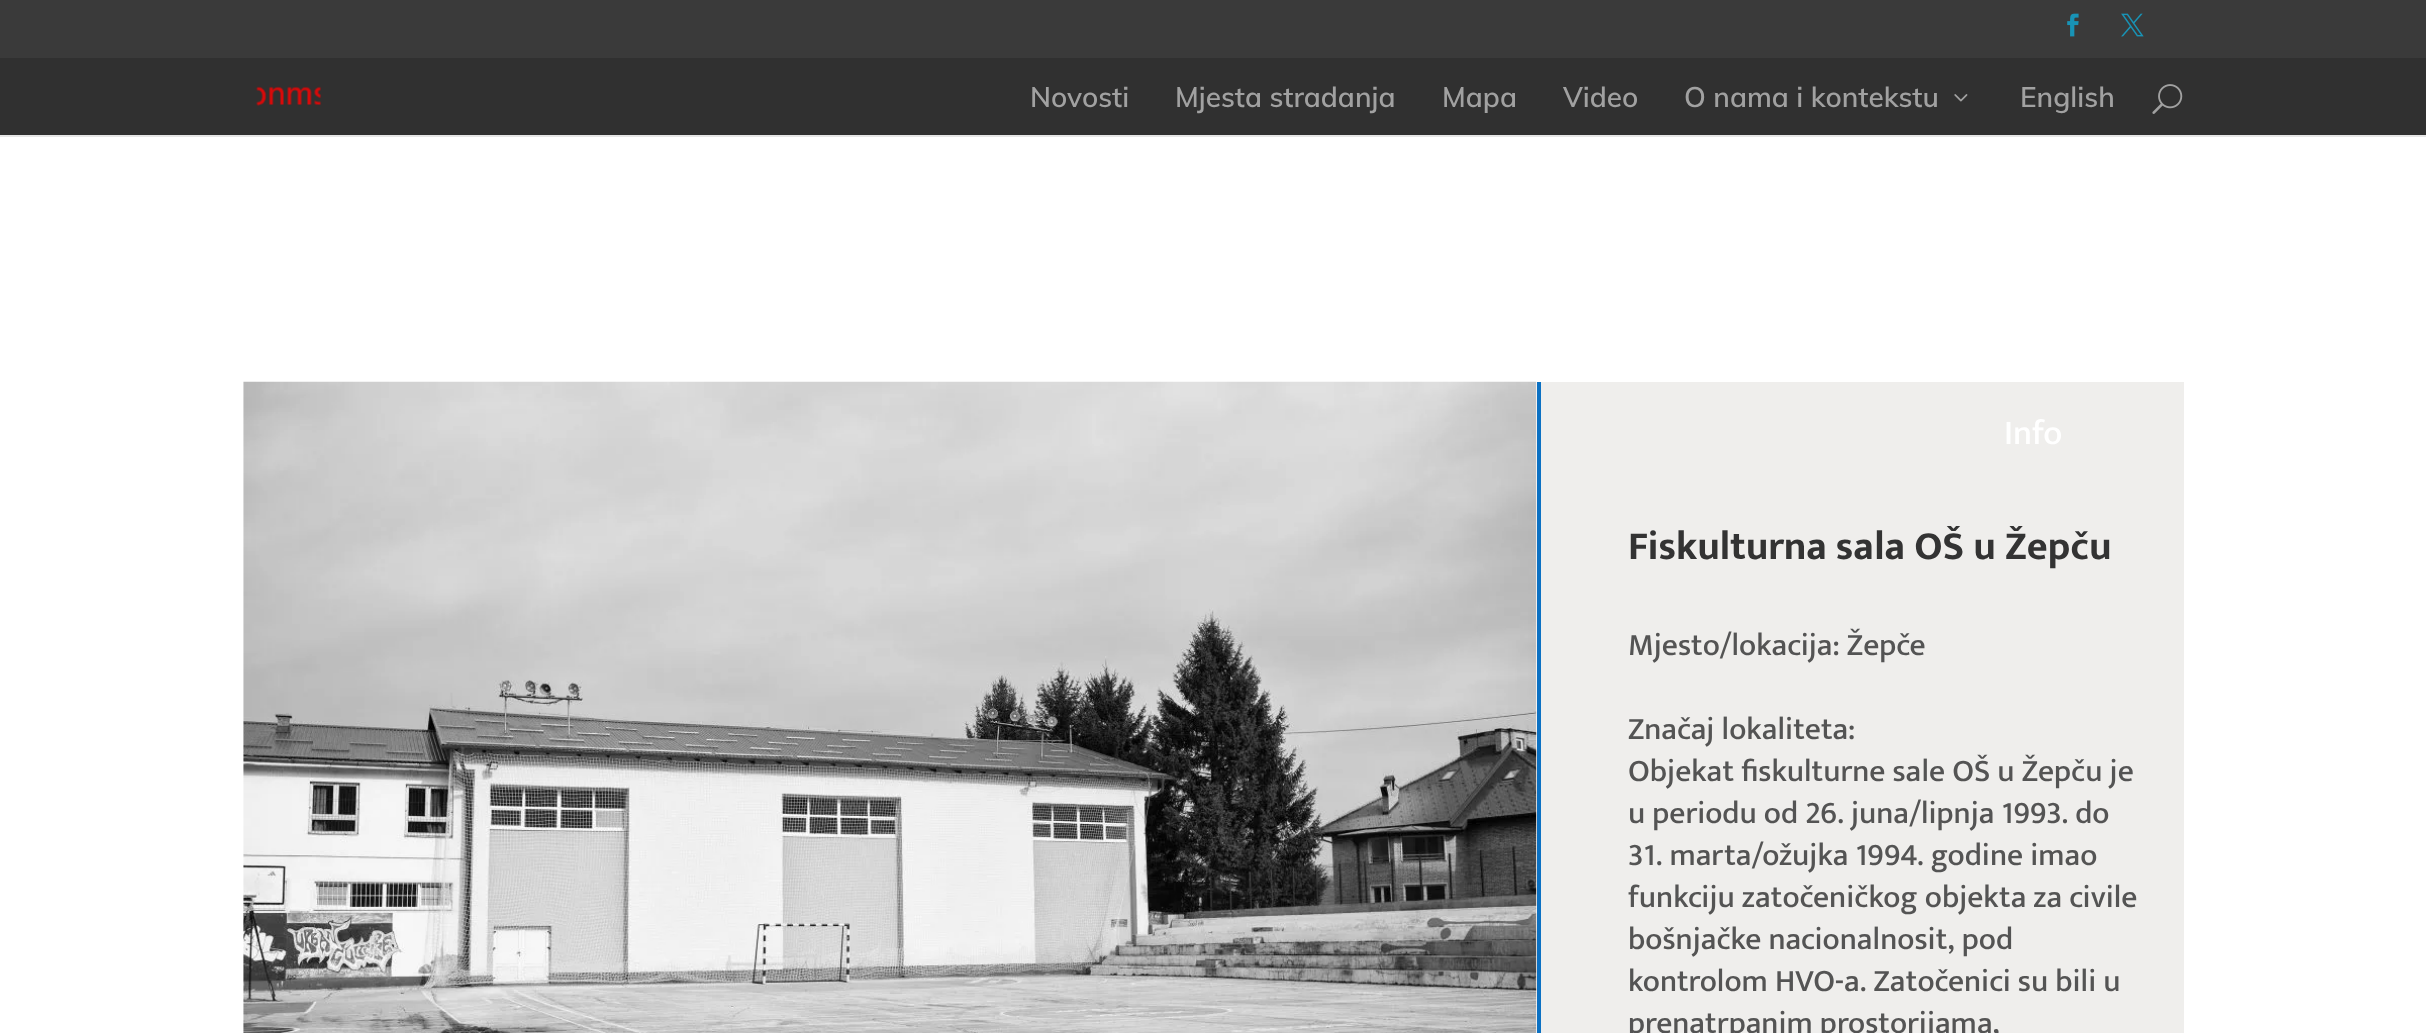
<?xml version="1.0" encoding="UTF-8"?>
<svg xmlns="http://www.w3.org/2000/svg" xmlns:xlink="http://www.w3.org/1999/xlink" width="2426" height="1033">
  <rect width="100%" height="100%" fill="#3a3a3a" />
  <image x="2067" y="13" width="12" height="24" xlink:href="image1.png" />
  <image x="2121" y="13" width="23" height="24" xlink:href="image2.png" />
  <rect y="135" width="2426" height="2" fill="#e6e6e6" />
  <rect y="58" width="2426" height="77" fill="#303030" />
  <image x="256" y="86" width="66" height="20" xlink:href="image3.png" />
  <image x="1954" y="94" width="14" height="8" xlink:href="image4.png" />
  <image x="2152" y="84" width="31" height="30" xlink:href="image5.png" />
  <rect y="137" width="2426" height="896" fill="#ffffff" />
  <image x="243" y="381" width="1294" height="652" xlink:href="image6.png" />
  <rect x="1541" y="382" width="643" height="651" fill="#efeeec" />
  <rect x="1537" y="382" width="4" height="651" fill="#0c71c3" />
  <text x="1030" y="107" style="font-family: Muli; font-size: 28px; font-weight: 600; fill: #a1a1a1">Novosti</text>
  <text x="1175" y="107" style="font-family: Muli; font-size: 28px; font-weight: 600; fill: #a1a1a1">Mjesta stradanja</text>
  <text x="1442" y="107" style="font-family: Muli; font-size: 28px; font-weight: 600; fill: #a1a1a1">Mapa</text>
  <text x="1563" y="107" style="font-family: Muli; font-size: 28px; font-weight: 600; fill: #a1a1a1">Video</text>
  <text x="1684" y="107" style="font-family: Muli; font-size: 28px; font-weight: 600; fill: #a1a1a1">O nama i kontekstu</text>
  <text x="2020" y="107" style="font-family: Muli; font-size: 28px; font-weight: 600; fill: #a1a1a1">English</text>
  <text x="2004" y="444" style="font-family: Mukta; font-size: 35px; font-weight: 500; fill: #ffffff">Info</text>
  <text x="1628" y="559" style="font-family: Mukta; font-size: 40.25px; font-weight: bold; fill: #333333">Fiskulturna sala OŠ u Žepču</text>
  <text x="1628" y="655" style="font-family: Mukta; font-size: 31.5px; font-weight: 500; fill: #545454">Mjesto/lokacija: Žepče</text>
  <text x="1628" y="739" style="font-family: Mukta; font-size: 31.5px; font-weight: 500; fill: #545454">Značaj lokaliteta:</text>
  <text x="1628" y="781" style="font-family: Mukta; font-size: 31.5px; font-weight: 500; fill: #545454">Objekat fiskulturne sale OŠ u Žepču je</text>
  <text x="1628" y="823" style="font-family: Mukta; font-size: 31.5px; font-weight: 500; fill: #545454">u periodu od 26. juna/lipnja 1993. do</text>
  <text x="1628" y="865" style="font-family: Mukta; font-size: 31.5px; font-weight: 500; fill: #545454">31. marta/ožujka 1994. godine imao</text>
  <text x="1628" y="907" style="font-family: Mukta; font-size: 31.5px; font-weight: 500; fill: #545454">funkciju zatočeničkog objekta za civile</text>
  <text x="1628" y="949" style="font-family: Mukta; font-size: 31.5px; font-weight: 500; fill: #545454">bošnjačke nacionalnosit, pod</text>
  <text x="1628" y="991" style="font-family: Mukta; font-size: 31.5px; font-weight: 500; fill: #545454">kontrolom HVO-a. Zatočenici su bili u</text>
  <text x="1628" y="1033" style="font-family: Mukta; font-size: 31.5px; font-weight: 500; fill: #545454">prenatrpanim prostorijama,</text>
</svg>
